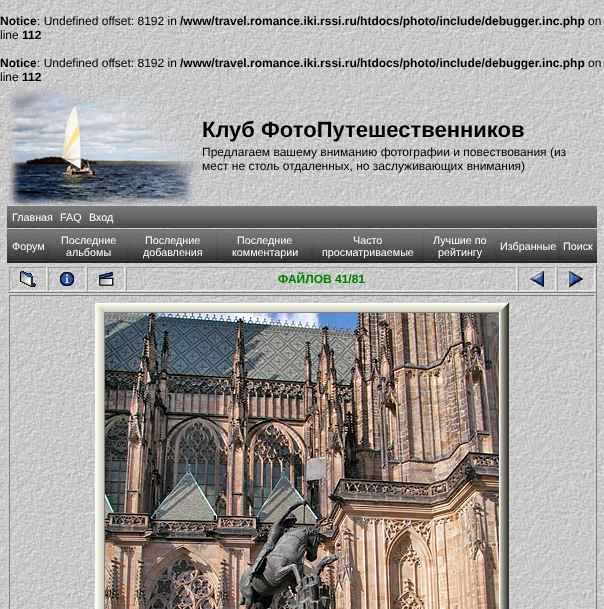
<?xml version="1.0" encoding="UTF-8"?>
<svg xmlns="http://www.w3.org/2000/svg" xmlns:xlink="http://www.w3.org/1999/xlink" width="604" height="609">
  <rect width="100%" height="100%" fill="#ffffff" />
  <image x="0" y="0" width="604" height="609" xlink:href="image1.png" />
  <image x="7" y="85" width="193" height="120" xlink:href="image2.png" />
  <image x="7" y="206" width="590" height="22" xlink:href="image3.png" />
  <image x="9" y="208" width="46" height="18" xlink:href="image4.png" />
  <image x="57" y="208" width="27" height="18" xlink:href="image5.png" />
  <image x="86" y="208" width="29" height="18" xlink:href="image6.png" />
  <image x="7" y="229" width="590" height="34" xlink:href="image7.png" />
  <image x="9" y="231" width="38" height="30" xlink:href="image8.png" />
  <image x="49" y="231" width="78" height="30" xlink:href="image9.png" />
  <image x="129" y="231" width="87" height="30" xlink:href="image10.png" />
  <image x="218" y="231" width="93" height="30" xlink:href="image11.png" />
  <image x="313" y="231" width="109" height="30" xlink:href="image12.png" />
  <image x="424" y="231" width="71" height="30" xlink:href="image13.png" />
  <image x="497" y="231" width="61" height="30" xlink:href="image14.png" />
  <image x="560" y="231" width="35" height="30" xlink:href="image15.png" />
  <rect x="7" y="265" width="590" height="1" fill="#d4d0c8" />
  <rect x="596" y="265" width="1" height="28" fill="#808080" />
  <rect x="7" y="292" width="590" height="1" fill="#808080" />
  <rect x="7" y="265" width="1" height="28" fill="#d4d0c8" />
  <rect x="9" y="267" width="38" height="1" fill="#9f9f9f" />
  <rect x="46" y="267" width="1" height="24" fill="#eeeeee" />
  <rect x="9" y="290" width="38" height="1" fill="#eeeeee" />
  <rect x="9" y="267" width="1" height="24" fill="#9f9f9f" />
  <image x="20" y="271" width="16" height="16" xlink:href="image16.png" />
  <rect x="48" y="267" width="38" height="1" fill="#9f9f9f" />
  <rect x="85" y="267" width="1" height="24" fill="#eeeeee" />
  <rect x="48" y="290" width="38" height="1" fill="#eeeeee" />
  <rect x="48" y="267" width="1" height="24" fill="#9f9f9f" />
  <image x="60" y="272" width="14" height="14" xlink:href="image17.png" />
  <rect x="87" y="267" width="38" height="1" fill="#9f9f9f" />
  <rect x="124" y="267" width="1" height="24" fill="#eeeeee" />
  <rect x="87" y="290" width="38" height="1" fill="#eeeeee" />
  <rect x="87" y="267" width="1" height="24" fill="#9f9f9f" />
  <image x="99" y="272" width="15" height="14" xlink:href="image18.png" />
  <rect x="126" y="267" width="391" height="1" fill="#9f9f9f" />
  <rect x="516" y="267" width="1" height="24" fill="#eeeeee" />
  <rect x="126" y="290" width="391" height="1" fill="#eeeeee" />
  <rect x="126" y="267" width="1" height="24" fill="#9f9f9f" />
  <rect x="518" y="267" width="38" height="1" fill="#9f9f9f" />
  <rect x="555" y="267" width="1" height="24" fill="#eeeeee" />
  <rect x="518" y="290" width="38" height="1" fill="#eeeeee" />
  <rect x="518" y="267" width="1" height="24" fill="#9f9f9f" />
  <image x="530" y="271" width="14" height="16" xlink:href="image19.png" />
  <rect x="557" y="267" width="38" height="1" fill="#9f9f9f" />
  <rect x="594" y="267" width="1" height="24" fill="#eeeeee" />
  <rect x="557" y="290" width="38" height="1" fill="#eeeeee" />
  <rect x="557" y="267" width="1" height="24" fill="#9f9f9f" />
  <image x="569" y="271" width="14" height="16" xlink:href="image20.png" />
  <rect x="7" y="293" width="590" height="1" fill="#d4d0c8" />
  <rect x="596" y="293" width="1" height="316" fill="#808080" />
  <rect x="7" y="293" width="1" height="316" fill="#d4d0c8" />
  <rect x="9" y="295" width="586" height="1" fill="#808080" />
  <rect x="594" y="295" width="1" height="314" fill="#d4d0c8" />
  <rect x="9" y="295" width="1" height="314" fill="#808080" />
  <image x="95" y="303" width="414" height="306" xlink:href="image21.png" />
  <text x="0" y="25" style="font-family: Liberation Sans; font-size: 12px; font-weight: bold; fill: #000000">Notice</text>
  <text x="37" y="25" style="font-family: Liberation Sans; font-size: 12px; fill: #000000">: Undefined offset: 8192 in</text>
  <text x="180" y="25" style="font-family: Liberation Sans; font-size: 12px; font-weight: bold; fill: #000000">/www/travel.romance.iki.rssi.ru/htdocs/photo/include/debugger.inc.php</text>
  <text x="588" y="25" style="font-family: Liberation Sans; font-size: 12px; fill: #000000">on</text>
  <text x="0" y="39" style="font-family: Liberation Sans; font-size: 12px; fill: #000000">line</text>
  <text x="22" y="39" style="font-family: Liberation Sans; font-size: 12px; font-weight: bold; fill: #000000">112</text>
  <text x="0" y="67" style="font-family: Liberation Sans; font-size: 12px; font-weight: bold; fill: #000000">Notice</text>
  <text x="37" y="67" style="font-family: Liberation Sans; font-size: 12px; fill: #000000">: Undefined offset: 8192 in</text>
  <text x="180" y="67" style="font-family: Liberation Sans; font-size: 12px; font-weight: bold; fill: #000000">/www/travel.romance.iki.rssi.ru/htdocs/photo/include/debugger.inc.php</text>
  <text x="588" y="67" style="font-family: Liberation Sans; font-size: 12px; fill: #000000">on</text>
  <text x="0" y="81" style="font-family: Liberation Sans; font-size: 12px; fill: #000000">line</text>
  <text x="22" y="81" style="font-family: Liberation Sans; font-size: 12px; font-weight: bold; fill: #000000">112</text>
  <text x="202" y="137" style="font-family: Liberation Sans; font-size: 22px; font-weight: bold; fill: #000000">Клуб ФотоПутешественников</text>
  <text x="202" y="156" style="font-family: Liberation Sans; font-size: 12px; fill: #000000">Предлагаем вашему вниманию фотографии и повествования (из</text>
  <text x="202" y="170" style="font-family: Liberation Sans; font-size: 12px; fill: #000000">мест не столь отдаленных, но заслуживающих внимания)</text>
  <text x="12" y="221" style="font-family: Liberation Sans; font-size: 10.75px; fill: #ffffff">Главная</text>
  <text x="60" y="221" style="font-family: Liberation Sans; font-size: 10.75px; fill: #ffffff">FAQ</text>
  <text x="89" y="221" style="font-family: Liberation Sans; font-size: 10.75px; fill: #ffffff">Вход</text>
  <text x="12" y="250" style="font-family: Liberation Sans; font-size: 10.75px; fill: #ffffff">Форум</text>
  <text x="61" y="244" style="font-family: Liberation Sans; font-size: 10.75px; fill: #ffffff">Последние</text>
  <text x="66" y="256" style="font-family: Liberation Sans; font-size: 10.75px; fill: #ffffff">альбомы</text>
  <text x="145" y="244" style="font-family: Liberation Sans; font-size: 10.75px; fill: #ffffff">Последние</text>
  <text x="143" y="256" style="font-family: Liberation Sans; font-size: 10.75px; fill: #ffffff">добавления</text>
  <text x="237" y="244" style="font-family: Liberation Sans; font-size: 10.75px; fill: #ffffff">Последние</text>
  <text x="232" y="256" style="font-family: Liberation Sans; font-size: 10.75px; fill: #ffffff">комментарии</text>
  <text x="353" y="244" style="font-family: Liberation Sans; font-size: 10.75px; fill: #ffffff">Часто</text>
  <text x="322" y="256" style="font-family: Liberation Sans; font-size: 10.75px; fill: #ffffff">просматриваемые</text>
  <text x="433" y="244" style="font-family: Liberation Sans; font-size: 10.75px; fill: #ffffff">Лучшие по</text>
  <text x="438" y="256" style="font-family: Liberation Sans; font-size: 10.75px; fill: #ffffff">рейтингу</text>
  <text x="500" y="250" style="font-family: Liberation Sans; font-size: 10.75px; fill: #ffffff">Избранные</text>
  <text x="563" y="250" style="font-family: Liberation Sans; font-size: 10.75px; fill: #ffffff">Поиск</text>
  <text x="278" y="283" style="font-family: Liberation Sans; font-size: 12px; font-weight: bold; fill: #008000">ФАЙЛОВ 41/81</text>
</svg>
